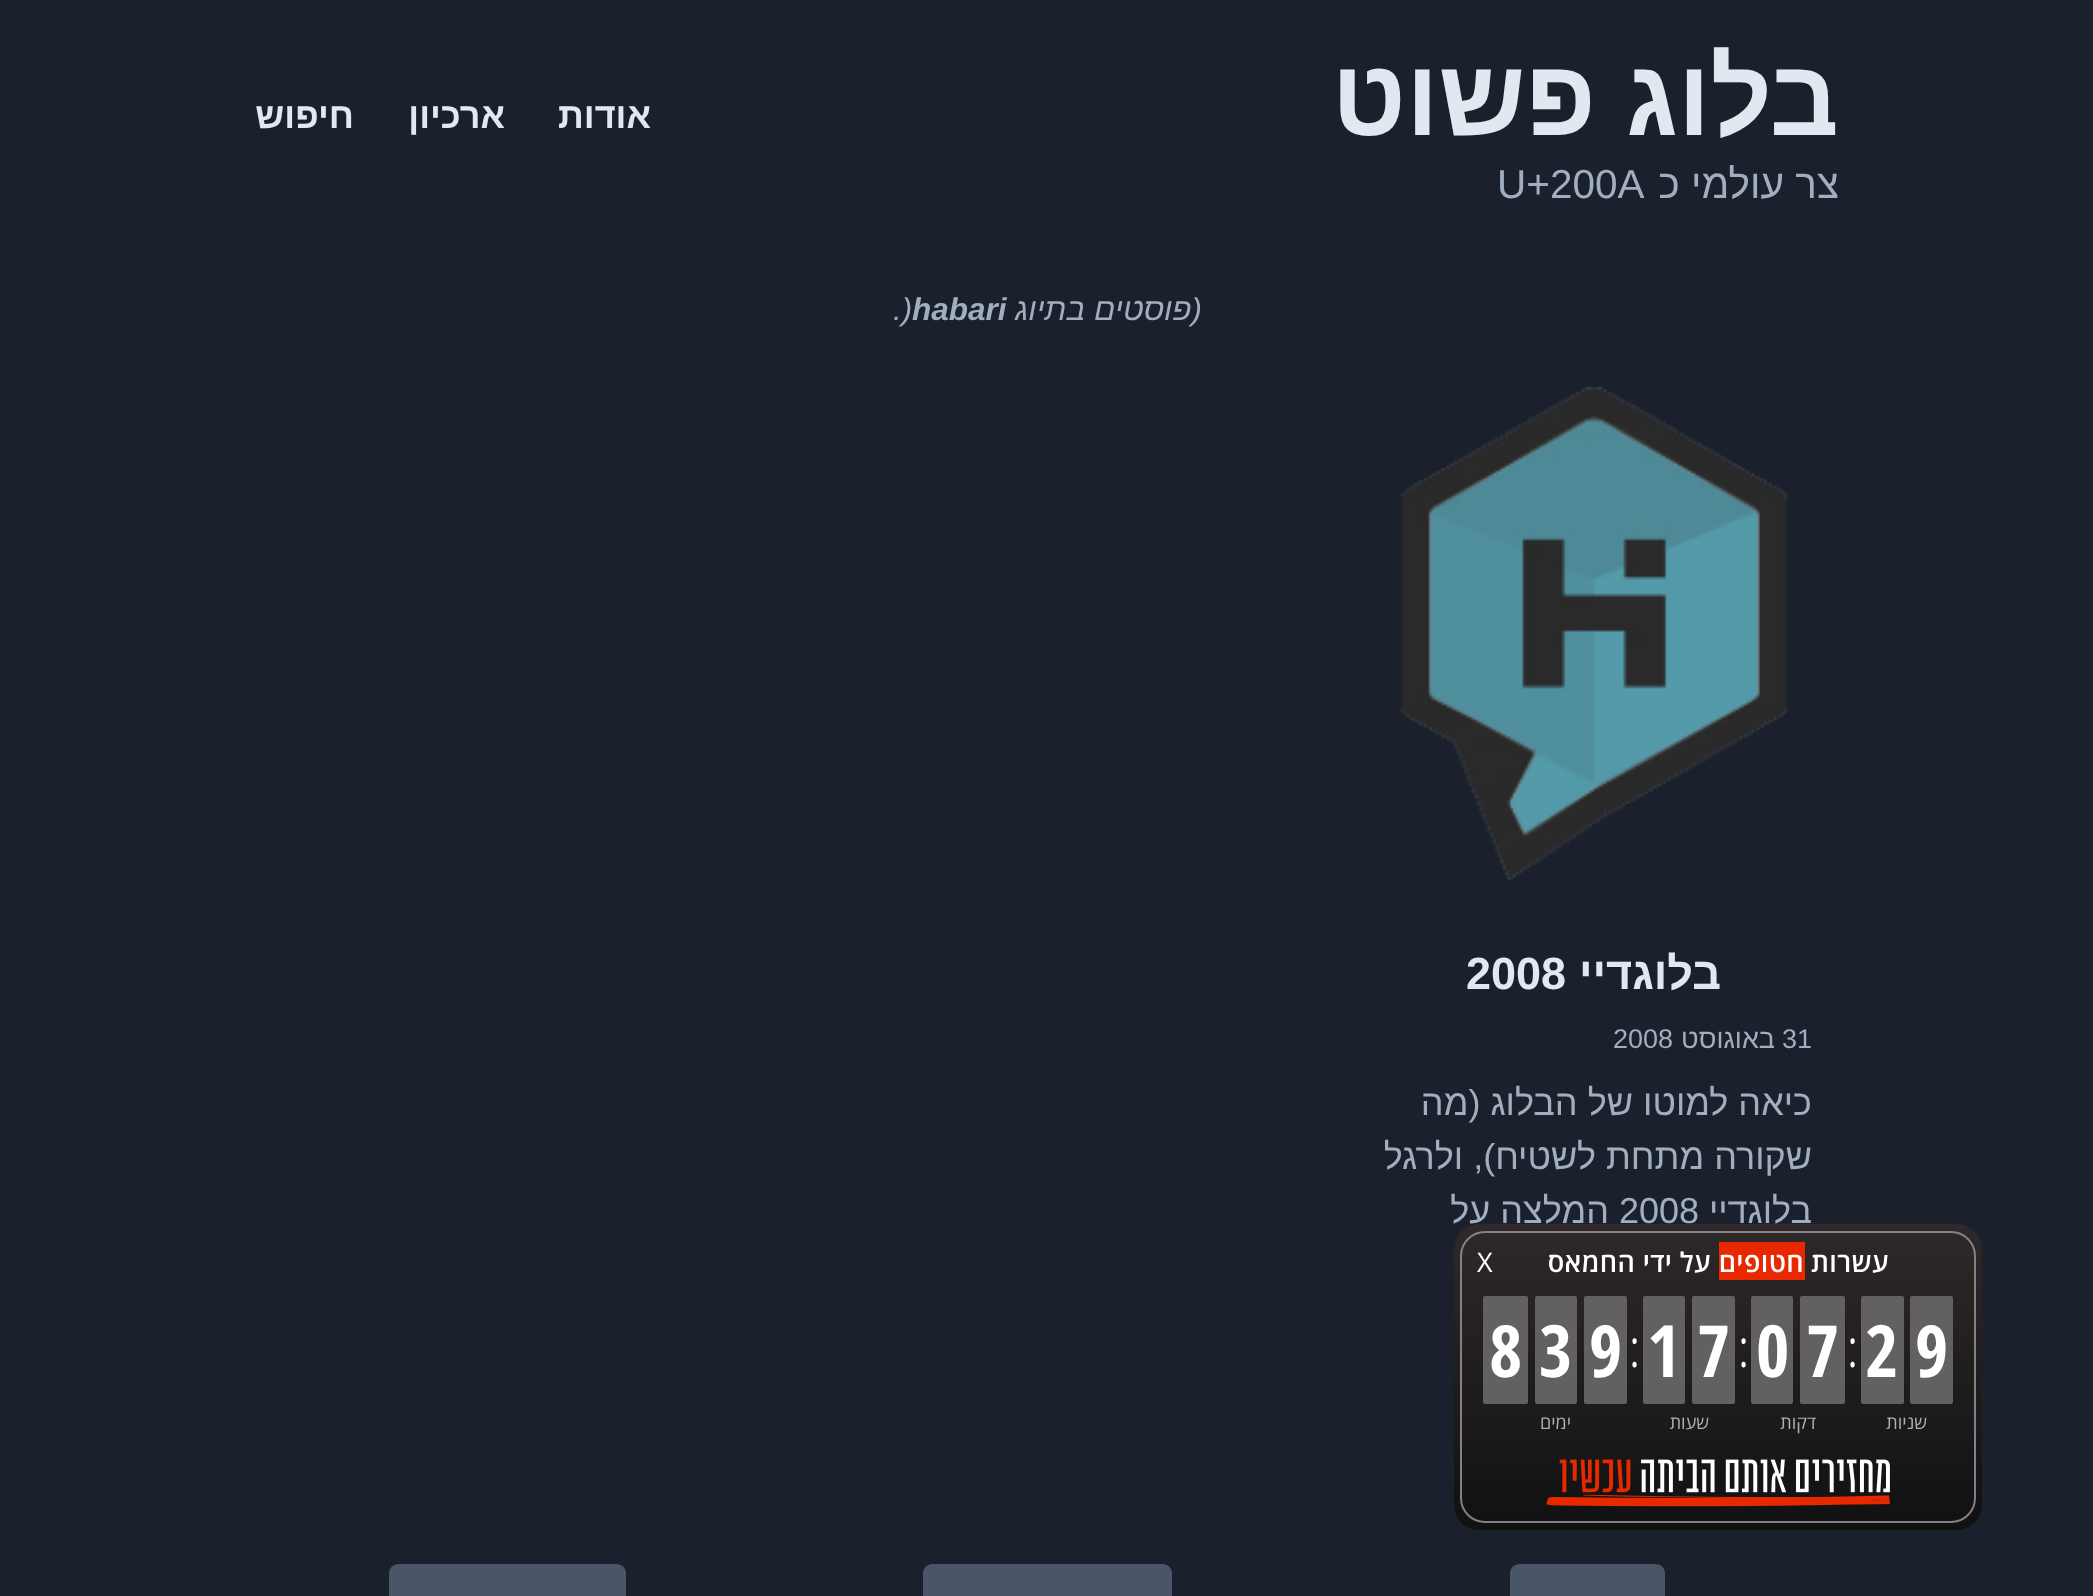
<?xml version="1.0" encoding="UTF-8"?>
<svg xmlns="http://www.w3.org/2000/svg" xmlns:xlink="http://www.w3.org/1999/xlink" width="2093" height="1596">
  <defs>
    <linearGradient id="g1" gradientUnits="userSpaceOnUse" x1="1718" y1="1224" x2="1718" y2="1530"><stop offset="0" stop-color="#2f2929" /><stop offset="1" stop-color="#111111" /></linearGradient>
  </defs>
  <rect width="100%" height="100%" fill="#1a202c" />
  <image x="1399" y="387" width="390" height="493" xlink:href="image1.png" />
  <rect x="1510" y="1564" width="155" height="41" rx="9" fill="#4a5568" />
  <rect x="923" y="1564" width="249" height="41" rx="9" fill="#4a5568" />
  <rect x="389" y="1564" width="237" height="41" rx="9" fill="#4a5568" />
  <rect x="1454" y="1224" width="528" height="306" rx="25" fill="url(#g1)" />
  <rect x="1461" y="1232" width="514" height="290" rx="24" fill="none" stroke="#867f8a" stroke-width="2" />
  <rect x="1719" y="1242" width="86" height="38" fill="#e82900" />
  <rect x="1910" y="1296" width="43" height="108" rx="2" fill="#626060" />
  <rect x="1861" y="1296" width="43" height="108" rx="2" fill="#626060" />
  <rect x="1800" y="1296" width="45" height="108" rx="2" fill="#626060" />
  <rect x="1751" y="1296" width="42" height="108" rx="2" fill="#626060" />
  <rect x="1692" y="1296" width="43" height="108" rx="2" fill="#626060" />
  <rect x="1643" y="1296" width="42" height="108" rx="2" fill="#626060" />
  <rect x="1584" y="1296" width="43" height="108" rx="2" fill="#626060" />
  <rect x="1535" y="1296" width="42" height="108" rx="2" fill="#626060" />
  <rect x="1483" y="1296" width="45" height="108" rx="2" fill="#626060" />
  <image x="1546" y="1459" width="344" height="48" xlink:href="image2.png" />
  <text x="1839" y="135" style="font-family: Liberation Sans; font-size: 108px; font-weight: bold; direction: rtl; fill: #e2e8f0">בלוג פשוט</text>
  <text x="1839" y="198" style="font-family: Liberation Sans; font-size: 40.5px; direction: rtl; fill: #a0aec0">צר עולמי כ</text>
  <text x="1497" y="198" style="font-family: Liberation Sans; font-size: 40.5px; fill: #a0aec0">U+200A</text>
  <text x="651" y="128" style="font-family: Liberation Sans; font-size: 36px; font-weight: bold; direction: rtl; fill: #e2e8f0">אודות</text>
  <text x="505" y="128" style="font-family: Liberation Sans; font-size: 36px; font-weight: bold; direction: rtl; fill: #e2e8f0">ארכיון</text>
  <text x="354" y="128" style="font-family: Liberation Sans; font-size: 36px; font-weight: bold; direction: rtl; fill: #e2e8f0">חיפוש</text>
  <text x="1202" y="320" style="font-family: Liberation Sans; font-size: 31.5px; font-style: italic; direction: rtl; fill: #a0aec0">(פוסטים בתיוג</text>
  <text x="912" y="320" style="font-family: Liberation Sans; font-size: 31.5px; font-weight: bold; font-style: italic; fill: #a0aec0">habari</text>
  <text x="893" y="320" style="font-family: Liberation Sans; font-size: 31.5px; font-style: italic; fill: #a0aec0">.)</text>
  <text x="1721" y="989" style="font-family: Liberation Sans; font-size: 45px; font-weight: bold; direction: rtl; fill: #e2e8f0">בלוגדיי</text>
  <text x="1466" y="989" style="font-family: Liberation Sans; font-size: 45px; font-weight: bold; fill: #e2e8f0">2008</text>
  <text x="1782" y="1048" style="font-family: Liberation Sans; font-size: 27px; fill: #a0aec0">31</text>
  <text x="1775" y="1048" style="font-family: Liberation Sans; font-size: 27px; direction: rtl; fill: #a0aec0">באוגוסט</text>
  <text x="1613" y="1048" style="font-family: Liberation Sans; font-size: 27px; fill: #a0aec0">2008</text>
  <text x="1812" y="1115" style="font-family: Liberation Sans; font-size: 36px; direction: rtl; fill: #a0aec0">כיאה למוטו של הבלוג (מה</text>
  <text x="1812" y="1169" style="font-family: Liberation Sans; font-size: 36px; direction: rtl; fill: #a0aec0">שקורה מתחת לשטיח), ולרגל</text>
  <text x="1812" y="1223" style="font-family: Liberation Sans; font-size: 36px; direction: rtl; fill: #a0aec0">בלוגדיי</text>
  <text x="1619" y="1223" style="font-family: Liberation Sans; font-size: 36px; fill: #a0aec0">2008</text>
  <text x="1609" y="1223" style="font-family: Liberation Sans; font-size: 36px; direction: rtl; fill: #a0aec0">המלצה על</text>
  <text x="1889" y="1272" style="font-family: Open Sans; font-size: 27px; font-weight: 600; letter-spacing: 0.4px; direction: rtl; fill: #ffffff">עשרות</text>
  <text x="1804" y="1272" style="font-family: Open Sans; font-size: 27px; font-weight: 600; letter-spacing: 0.4px; direction: rtl; fill: #ffffff">חטופים</text>
  <text x="1711" y="1272" style="font-family: Open Sans; font-size: 27px; font-weight: 600; letter-spacing: 0.4px; direction: rtl; fill: #ffffff">על ידי החמאס</text>
  <text x="1915" y="1377" style="font-family: Open Sans Condensed; font-size: 72px; font-weight: bold; fill: #ffffff">9</text>
  <text x="1865" y="1377" style="font-family: Open Sans Condensed; font-size: 72px; font-weight: bold; fill: #ffffff">2</text>
  <text x="1927" y="1429" style="font-family: Open Sans; font-size: 18px; direction: rtl; fill: #afafaf">שניות</text>
  <text x="1847" y="1367" style="font-family: Open Sans Condensed; font-size: 54px; font-weight: 300; fill: #ffffff">:</text>
  <text x="1806" y="1377" style="font-family: Open Sans Condensed; font-size: 72px; font-weight: bold; fill: #ffffff">7</text>
  <text x="1756" y="1377" style="font-family: Open Sans Condensed; font-size: 72px; font-weight: bold; fill: #ffffff">0</text>
  <text x="1816" y="1429" style="font-family: Open Sans; font-size: 18px; direction: rtl; fill: #afafaf">דקות</text>
  <text x="1738" y="1367" style="font-family: Open Sans Condensed; font-size: 54px; font-weight: 300; fill: #ffffff">:</text>
  <text x="1697" y="1377" style="font-family: Open Sans Condensed; font-size: 72px; font-weight: bold; fill: #ffffff">7</text>
  <text x="1647" y="1377" style="font-family: Open Sans Condensed; font-size: 72px; font-weight: bold; fill: #ffffff">1</text>
  <text x="1709" y="1429" style="font-family: Open Sans; font-size: 18px; direction: rtl; fill: #afafaf">שעות</text>
  <text x="1629" y="1367" style="font-family: Open Sans Condensed; font-size: 54px; font-weight: 300; fill: #ffffff">:</text>
  <text x="1589" y="1377" style="font-family: Open Sans Condensed; font-size: 72px; font-weight: bold; fill: #ffffff">9</text>
  <text x="1539" y="1377" style="font-family: Open Sans Condensed; font-size: 72px; font-weight: bold; fill: #ffffff">3</text>
  <text x="1489" y="1377" style="font-family: Open Sans Condensed; font-size: 72px; font-weight: bold; fill: #ffffff">8</text>
  <text x="1571" y="1429" style="font-family: Open Sans; font-size: 18px; direction: rtl; fill: #afafaf">ימים</text>
  <text x="1477" y="1272" style="font-family: Open Sans; font-size: 27px; fill: #ffffff">X</text>
</svg>
